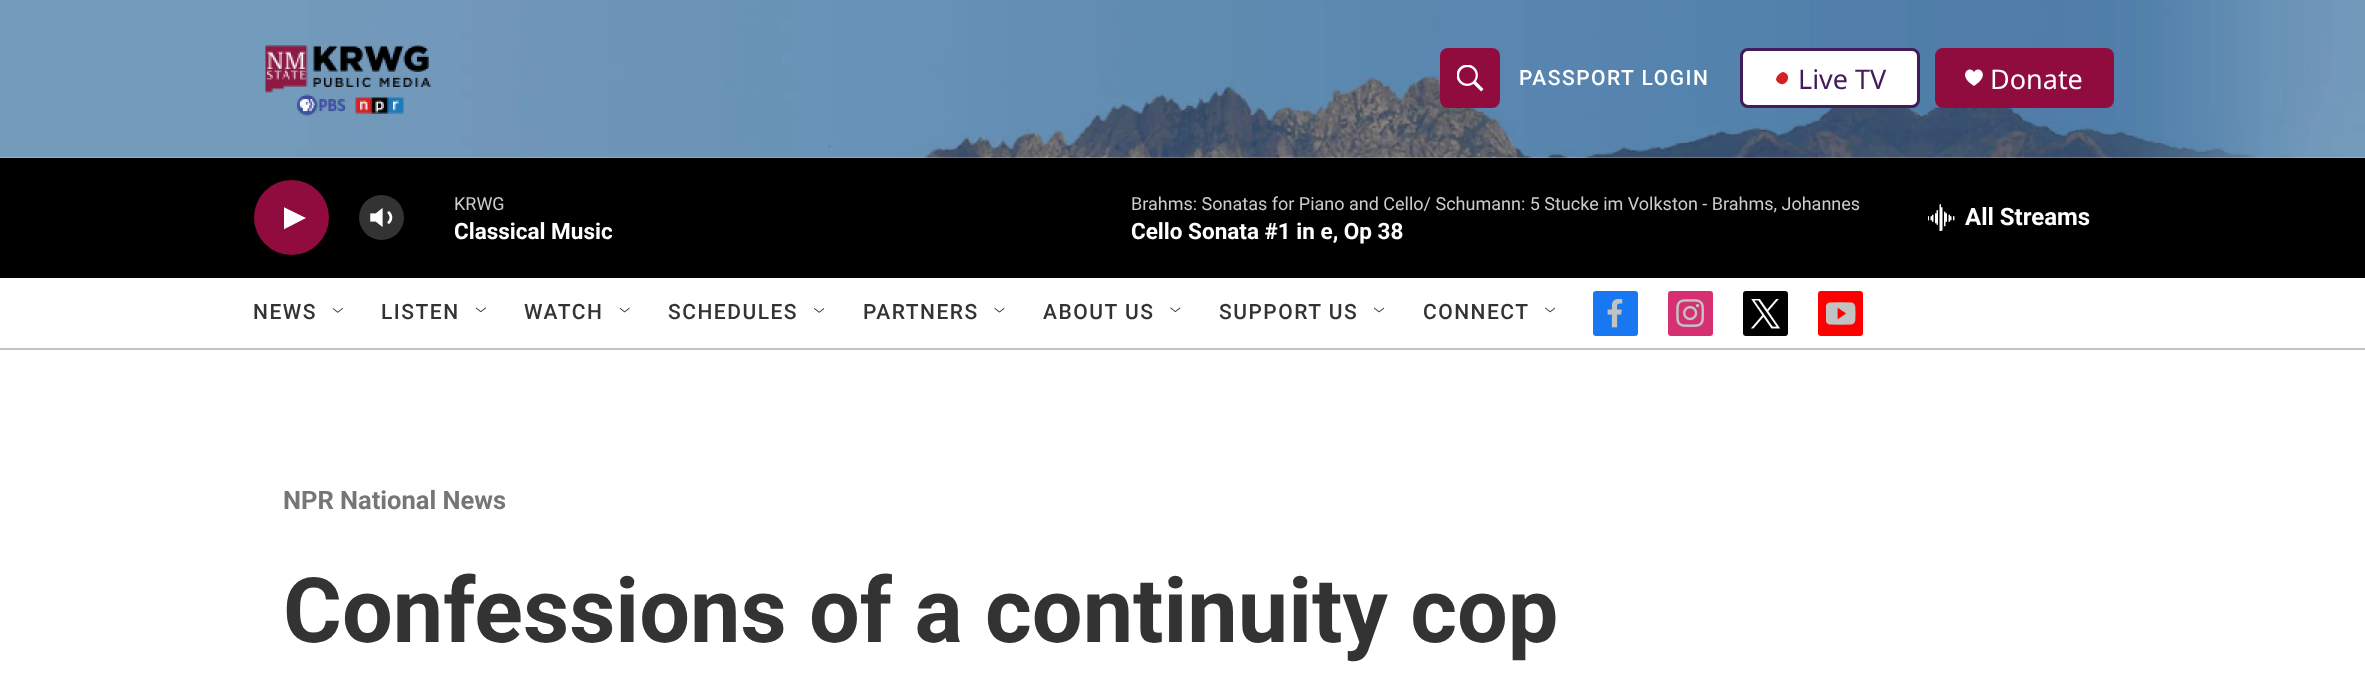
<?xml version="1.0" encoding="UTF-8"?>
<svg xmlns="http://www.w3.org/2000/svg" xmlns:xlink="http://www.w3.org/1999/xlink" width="2365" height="683">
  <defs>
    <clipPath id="clip1"><rect x="284" y="204" width="22" height="29" /></clipPath>
    <clipPath id="clip2"><rect x="455" y="218" width="157" height="27" /></clipPath>
  </defs>
  <rect width="100%" height="100%" fill="#ffffff" />
  <rect y="348" width="2365" height="2" fill="#c2c2c2" />
  <image x="0" y="0" width="2365" height="158" xlink:href="image1.png" />
  <image x="265" y="45" width="166" height="71" xlink:href="image2.png" />
  <rect x="1440" y="48" width="60" height="60" rx="8" fill="#900c3f" />
  <image x="1457" y="65" width="27" height="27" xlink:href="image3.png" />
  <rect x="1741.5" y="49.5" width="177" height="57" rx="6.5" fill="#ffffff" stroke="#411c58" stroke-width="3" />
  <path d="M 1783.5 72 c 9.5 2.5 2.5 17 -5.5 10.5 c -0.5 -0.5 -2 -2 -2 -3 c 0 -3.5 4 -7 7.5 -7.5 z" fill="#d62021" />
  <rect x="1935" y="48" width="179" height="60" rx="8" fill="#900c3f" />
  <path d="M 1974 72.5 c -3 -8 -18.5 2 0 13.5 c 18.5 -11.5 3 -21.5 0 -13.5 z" fill="#ffffff" />
  <rect y="158" width="2365" height="120" fill="#000000" />
  <circle cx="291.5" cy="217.5" r="37.5" fill="#900c3f" />
  <g clip-path="url(#clip1)">
    <path d="M 283.5 207 l 22.5 11 l -22.5 11.5 z" fill="#ffffff" />
  </g>
  <image x="370" y="208" width="23" height="19" xlink:href="image4.png" />
  <circle cx="381.5" cy="217.5" r="22.5" fill="#ffffff" fill-opacity="0.2" />
  <image x="1928" y="204" width="27" height="27" xlink:href="image5.png" />
  <image x="332" y="308" width="11" height="5" xlink:href="image6.png" />
  <image x="475" y="307" width="11" height="6" xlink:href="image7.png" />
  <image x="619" y="307" width="11" height="6" xlink:href="image8.png" />
  <image x="814" y="308" width="11" height="5" xlink:href="image9.png" />
  <image x="994" y="307" width="11" height="6" xlink:href="image10.png" />
  <image x="1170" y="307" width="11" height="5" xlink:href="image11.png" />
  <image x="1374" y="307" width="10" height="6" xlink:href="image12.png" />
  <image x="1545" y="307" width="11" height="6" xlink:href="image13.png" />
  <rect x="1593" y="291" width="45" height="45" rx="3" fill="#1778f2" />
  <image x="1607" y="299" width="16" height="29" xlink:href="image14.png" />
  <rect x="1668" y="291" width="45" height="45" rx="3" fill="#d63072" />
  <image x="1676" y="299" width="28" height="28" xlink:href="image15.png" />
  <rect x="1743" y="291" width="45" height="45" rx="3" fill="#000000" />
  <image x="1751" y="299" width="29" height="30" xlink:href="image16.png" />
  <rect x="1818" y="291" width="45" height="45" rx="3" fill="#ff0000" />
  <image x="1826" y="302" width="30" height="23" xlink:href="image17.png" />
  <text x="1519" y="85" style="font-family: Roboto; font-size: 21px; font-weight: 500; letter-spacing: 1.5px; fill: #ffffff">PASSPORT LOGIN</text>
  <text x="1798" y="89" style="font-family: Noto Sans; font-size: 27px; fill: #411c58">Live TV</text>
  <text x="1990" y="89" style="font-family: Noto Sans; font-size: 27px; fill: #ffffff">Donate</text>
  <text x="454" y="210" style="font-family: Roboto; font-size: 18px; fill: #cccccc">KRWG</text>
  <g clip-path="url(#clip2)">
    <text x="454" y="239" style="font-family: 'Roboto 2'; font-size: 22.5px; font-weight: bold; fill: #ffffff">Classical Music</text>
  </g>
  <text x="1131" y="210" style="font-family: Roboto; font-size: 18px; fill: #cccccc">Brahms: Sonatas for Piano and Cello/ Schumann: 5 Stucke im Volkston - Brahms, Johannes</text>
  <text x="1131" y="239" style="font-family: 'Roboto 2'; font-size: 22.5px; font-weight: bold; fill: #ffffff">Cello Sonata #1 in e, Op 38</text>
  <text x="1965" y="225" style="font-family: 'Roboto 2'; font-size: 24px; font-weight: bold; fill: #ffffff">All Streams</text>
  <text x="253" y="319" style="font-family: Roboto; font-size: 21px; font-weight: 500; letter-spacing: 1.5px; fill: #333333">NEWS</text>
  <text x="381" y="319" style="font-family: Roboto; font-size: 21px; font-weight: 500; letter-spacing: 1.5px; fill: #333333">LISTEN</text>
  <text x="524" y="319" style="font-family: Roboto; font-size: 21px; font-weight: 500; letter-spacing: 1.5px; fill: #333333">WATCH</text>
  <text x="668" y="319" style="font-family: Roboto; font-size: 21px; font-weight: 500; letter-spacing: 1.5px; fill: #333333">SCHEDULES</text>
  <text x="863" y="319" style="font-family: Roboto; font-size: 21px; font-weight: 500; letter-spacing: 1.5px; fill: #333333">PARTNERS</text>
  <text x="1043" y="319" style="font-family: Roboto; font-size: 21px; font-weight: 500; letter-spacing: 1.5px; fill: #333333">ABOUT US</text>
  <text x="1219" y="319" style="font-family: Roboto; font-size: 21px; font-weight: 500; letter-spacing: 1.5px; fill: #333333">SUPPORT US</text>
  <text x="1423" y="319" style="font-family: Roboto; font-size: 21px; font-weight: 500; letter-spacing: 1.5px; fill: #333333">CONNECT</text>
  <text x="283" y="509" style="font-family: Roboto; font-size: 25.5px; font-weight: bold; fill: #767676">NPR National News</text>
  <text x="283" y="642" style="font-family: Roboto; font-size: 90px; font-weight: bold; fill: #333333">Confessions of a continuity cop</text>
</svg>
